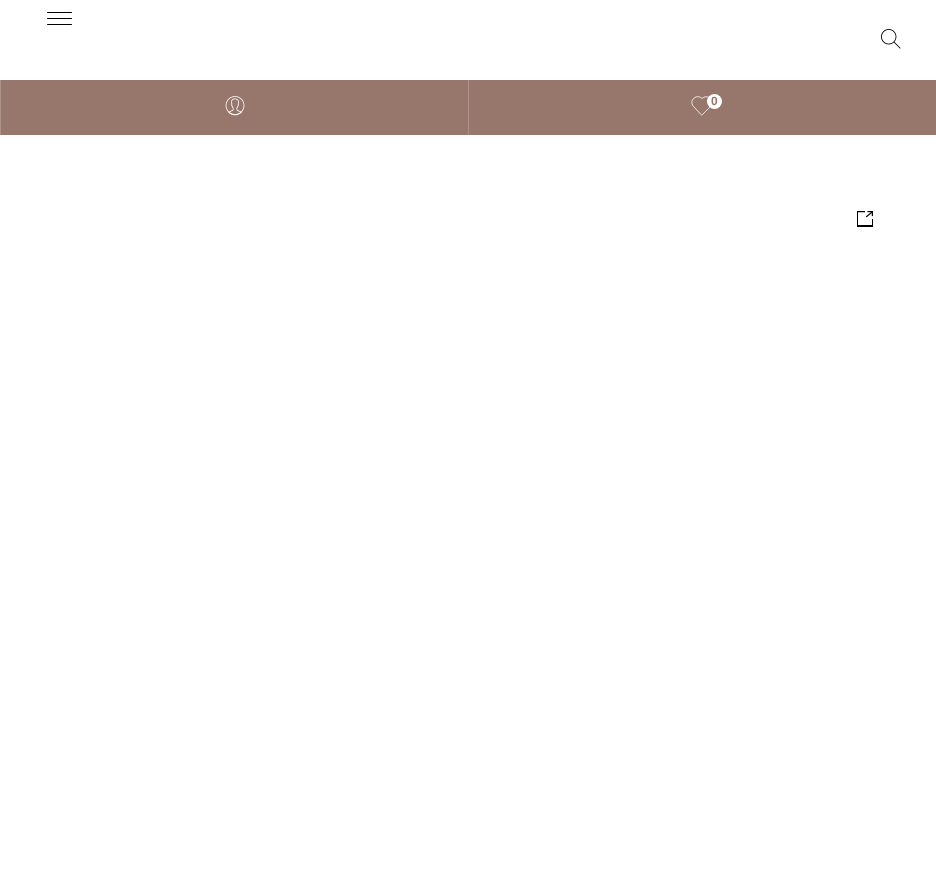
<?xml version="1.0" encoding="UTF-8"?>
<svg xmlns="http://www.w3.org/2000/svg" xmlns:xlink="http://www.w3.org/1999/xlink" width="936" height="887">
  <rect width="100%" height="100%" fill="#ffffff" />
  <rect x="47" y="18" width="25" height="1" rx="0.5" fill="#000000" />
  <rect x="47" y="12" width="25" height="1" rx="0.5" fill="#000000" />
  <rect x="47" y="24" width="25" height="1" rx="0.5" fill="#000000" />
  <image x="881" y="29" width="20" height="20" xlink:href="image1.png" />
  <rect x="1" y="80" width="935" height="55" fill="#97776c" />
  <rect y="80" width="1" height="55" fill="#ac9289" />
  <image x="225" y="96" width="20" height="20" xlink:href="image2.png" />
  <rect x="468" y="80" width="1" height="55" fill="#ac9289" />
  <path d="M 693.5 106.5 c -5.5 -5.5 3 -13.5 8.5 -8 c 4.5 -4.5 12 0.5 9.5 6 c -1 2.5 -7.5 8.5 -9.5 10.5 z" fill="none" stroke="#ffffff" stroke-width="0.8" stroke-linecap="round" stroke-linejoin="round" />
  <circle cx="714.5" cy="101.5" r="7.5" fill="#ffffff" />
  <image x="857" y="211" width="16" height="16" xlink:href="image3.png" />
  <text x="711" y="105" style="font-family: Liberation Sans; font-size: 12px; font-weight: bold; fill: #97776c">0</text>
</svg>
